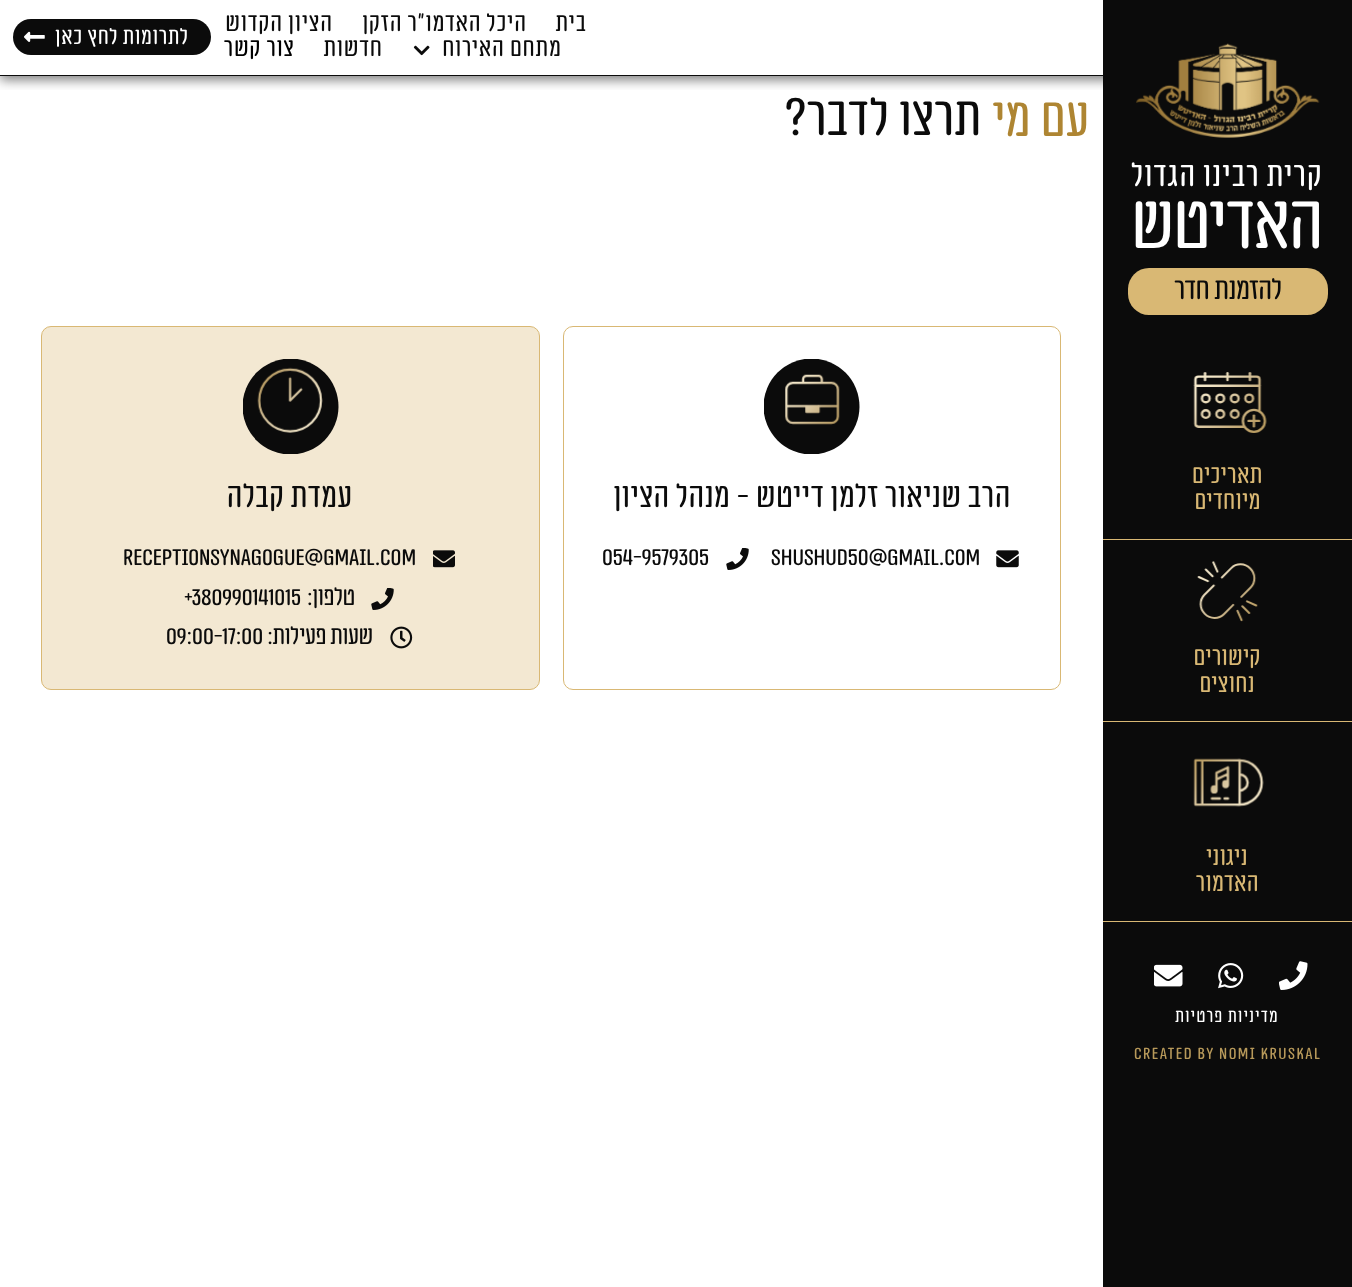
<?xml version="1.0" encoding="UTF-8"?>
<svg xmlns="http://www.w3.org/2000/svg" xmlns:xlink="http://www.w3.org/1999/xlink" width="1352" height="1287">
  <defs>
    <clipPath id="clip1"><rect x="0" y="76" width="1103" height="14" /></clipPath>
    <clipPath id="clip2"><rect x="764" y="359" width="96" height="95" /></clipPath>
    <clipPath id="clip3"><rect x="243" y="359" width="96" height="95" /></clipPath>
  </defs>
  <rect width="100%" height="100%" fill="#ffffff" />
  <g clip-path="url(#clip1)">
    <rect y="4" width="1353" height="76" fill="#000000" fill-opacity="0.5" filter="blur(6px)" />
  </g>
  <rect y="75" width="1103" height="1" fill="#0b0b0b" />
  <image x="413" y="45" width="17" height="11" xlink:href="image1.png" />
  <rect x="13" y="19" width="198" height="36" rx="18" fill="#0b0b0b" />
  <image x="24" y="31" width="21" height="11" xlink:href="image2.png" />
  <rect x="1103" width="249" height="1287" fill="#0b0b0b" />
  <image x="1136" y="43" width="184" height="95" xlink:href="image3.png" />
  <rect x="1128" y="268" width="200" height="47" rx="21" fill="#d9b874" />
  <rect x="1103" y="539" width="249" height="1" fill="#d9b874" />
  <image x="1193" y="372" width="74" height="61" xlink:href="image4.png" />
  <rect x="1103" y="721" width="249" height="1" fill="#d9b874" />
  <image x="1197" y="561" width="61" height="61" xlink:href="image5.png" />
  <rect x="1103" y="921" width="249" height="1" fill="#d9b874" />
  <image x="1193" y="758" width="71" height="49" xlink:href="image6.png" />
  <image x="1279" y="961" width="29" height="29" xlink:href="image7.png" />
  <image x="1218" y="963" width="26" height="26" xlink:href="image8.png" />
  <image x="1154" y="964" width="29" height="23" xlink:href="image9.png" />
  <rect x="563.5" y="326.5" width="497" height="363" rx="9.5" fill="none" stroke="#d9b874" />
  <g clip-path="url(#clip2)">
    <circle cx="811.5" cy="406.5" r="48" fill="#0b0b0b" />
  </g>
  <image x="785" y="374" width="55" height="51" xlink:href="image10.png" />
  <image x="996" y="550" width="23" height="18" xlink:href="image11.png" />
  <image x="726" y="548" width="23" height="22" xlink:href="image12.png" />
  <rect x="41.5" y="326.5" width="498" height="363" rx="9.5" fill="#f3e8d2" stroke="#d9b874" />
  <g clip-path="url(#clip3)">
    <circle cx="290.5" cy="406.5" r="48" fill="#0b0b0b" />
  </g>
  <image x="257" y="367" width="66" height="66" xlink:href="image13.png" />
  <image x="433" y="550" width="22" height="18" xlink:href="image14.png" />
  <image x="371" y="588" width="23" height="22" xlink:href="image15.png" />
  <image x="390" y="626" width="23" height="23" xlink:href="image16.png" />
  <text x="587" y="31" style="font-family: 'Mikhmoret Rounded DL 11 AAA'; font-size: 26.25px; letter-spacing: 1.25px; direction: rtl; fill: #0b0b0b">בית</text>
  <text x="527" y="31" style="font-family: 'Mikhmoret Rounded DL 11 AAA'; font-size: 26.25px; letter-spacing: 1.25px; direction: rtl; fill: #0b0b0b">היכל האדמו"ר הזקן</text>
  <text x="333" y="31" style="font-family: 'Mikhmoret Rounded DL 11 AAA'; font-size: 26.25px; letter-spacing: 1.25px; direction: rtl; fill: #0b0b0b">הציון הקדוש</text>
  <text x="562" y="56" style="font-family: 'Mikhmoret Rounded DL 11 AAA'; font-size: 26.25px; letter-spacing: 1.25px; direction: rtl; fill: #0b0b0b">מתחם האירוח</text>
  <text x="383" y="56" style="font-family: 'Mikhmoret Rounded DL 11 AAA'; font-size: 26.25px; letter-spacing: 1.25px; direction: rtl; fill: #0b0b0b">חדשות</text>
  <text x="295" y="56" style="font-family: 'Mikhmoret Rounded DL 11 AAA'; font-size: 26.25px; letter-spacing: 1.25px; direction: rtl; fill: #000000">צור קשר</text>
  <text x="189" y="44" style="font-family: 'Mikhmoret Rounded DL 11 AAA'; font-size: 23.75px; letter-spacing: 1.1px; direction: rtl; fill: #ffffff">לתרומות לחץ כאן</text>
  <text x="1323" y="186" style="font-family: 'Mikhmoret Rounded DL 11 AAA'; font-size: 35px; letter-spacing: 1.6px; direction: rtl; fill: #ffffff">קרית רבינו הגדול</text>
  <text x="1323" y="248" style="font-family: 'Mikhmoret Rounded DL 11 AAA'; font-size: 77.5px; direction: rtl; fill: #ffffff">האדיטש</text>
  <text x="1282" y="299" style="font-family: 'Mikhmoret Rounded DL 11 AAA'; font-size: 31px; direction: rtl; fill: #0b0b0b">להזמנת חדר</text>
  <text x="1263" y="483" style="font-family: 'Mikhmoret Rounded DL 11 AAA'; font-size: 26.25px; letter-spacing: 0.75px; direction: rtl; fill: #d9b874">תאריכים</text>
  <text x="1261" y="509" style="font-family: 'Mikhmoret Rounded DL 11 AAA'; font-size: 26.25px; letter-spacing: 0.75px; direction: rtl; fill: #d9b874">מיוחדים</text>
  <text x="1261" y="665" style="font-family: 'Mikhmoret Rounded DL 11 AAA'; font-size: 26.25px; letter-spacing: 0.75px; direction: rtl; fill: #d9b874">קישורים</text>
  <text x="1255" y="692" style="font-family: 'Mikhmoret Rounded DL 11 AAA'; font-size: 26.25px; letter-spacing: 0.75px; direction: rtl; fill: #d9b874">נחוצים</text>
  <text x="1248" y="865" style="font-family: 'Mikhmoret Rounded DL 11 AAA'; font-size: 26.25px; letter-spacing: 0.75px; direction: rtl; fill: #d9b874">ניגוני</text>
  <text x="1259" y="891" style="font-family: 'Mikhmoret Rounded DL 11 AAA'; font-size: 26.25px; letter-spacing: 0.75px; direction: rtl; fill: #d9b874">האדמור</text>
  <text x="1279" y="1022" style="font-family: 'Mikhmoret Rounded DL 11 AAA'; font-size: 18.75px; letter-spacing: 1.5px; direction: rtl; fill: #ffffff">מדיניות פרטיות</text>
  <text x="1134" y="1059" style="font-family: 'Mikhmoret Rounded DL 11 AAA'; font-size: 18.75px; letter-spacing: 1.5px; fill: #b7995a">CREATED BY NOMI KRUSKAL</text>
  <text x="1090" y="136" style="font-family: 'Mikhmoret Rounded DL 11 AAA'; font-size: 56px; letter-spacing: 1px; direction: rtl; fill: #ae8532">עם מי</text>
  <text x="982" y="135" style="font-family: 'Mikhmoret Rounded DL 11 AAA'; font-size: 56px; letter-spacing: 1px; direction: rtl; fill: #0b0b0b">תרצו לדבר?</text>
  <text x="1011" y="507" style="font-family: 'Mikhmoret Rounded DL 11 AAA'; font-size: 35px; letter-spacing: 1px; direction: rtl; fill: #0b0b0b">הרב שניאור זלמן דייטש - מנהל הציון</text>
  <text x="771" y="565" style="font-family: 'Mikhmoret Rounded DL 11 AAA'; font-size: 26.25px; fill: #0b0b0b">SHUSHUD50@GMAIL.COM</text>
  <text x="602" y="565" style="font-family: 'Mikhmoret Rounded DL 11 AAA'; font-size: 26.25px; fill: #0b0b0b">054-9579305</text>
  <text x="353" y="507" style="font-family: 'Mikhmoret Rounded DL 11 AAA'; font-size: 35px; letter-spacing: 1px; direction: rtl; fill: #0b0b0b">עמדת קבלה</text>
  <text x="123" y="565" style="font-family: 'Mikhmoret Rounded DL 11 AAA'; font-size: 26.25px; fill: #0b0b0b">receptionsynagogue@gmail.com</text>
  <text x="355" y="605" style="font-family: 'Mikhmoret Rounded DL 11 AAA'; font-size: 26.25px; direction: rtl; fill: #0b0b0b">טלפון:</text>
  <text x="184" y="605" style="font-family: 'Mikhmoret Rounded DL 11 AAA'; font-size: 26.25px; fill: #0b0b0b">+380990141015</text>
  <text x="373" y="644" style="font-family: 'Mikhmoret Rounded DL 11 AAA'; font-size: 26.25px; direction: rtl; fill: #0b0b0b">שעות פעילות:</text>
  <text x="166" y="644" style="font-family: 'Mikhmoret Rounded DL 11 AAA'; font-size: 26.25px; fill: #0b0b0b">09:00-17:00</text>
</svg>
